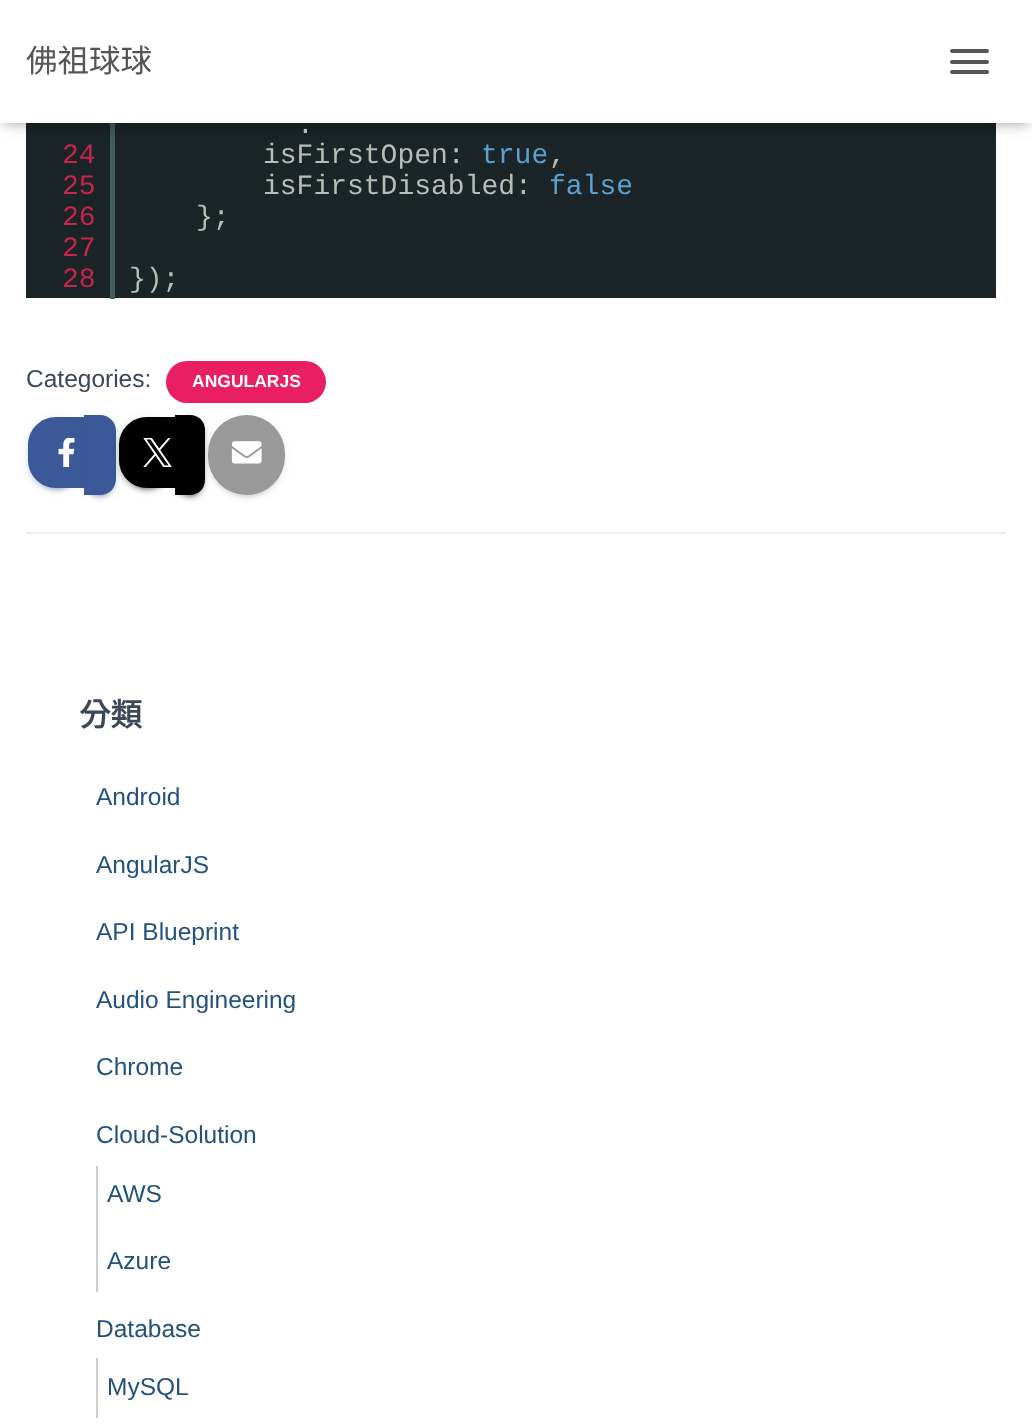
<?xml version="1.0" encoding="UTF-8"?>
<svg xmlns="http://www.w3.org/2000/svg" xmlns:xlink="http://www.w3.org/1999/xlink" width="1032" height="1426">
  <rect width="100%" height="100%" fill="#ffffff" />
  <rect x="26" y="123" width="970" height="175" fill="#1b2426" />
  <rect x="110" y="123" width="5" height="22" fill="#435a5f" />
  <rect x="110" y="142" width="5" height="3" fill="#1b2426" />
  <rect x="110" y="140" width="5" height="35" fill="#435a5f" />
  <rect x="4" y="11" width="1025" height="115" fill="#000000" fill-opacity="0.1" filter="blur(4.5px)" />
  <rect y="2" width="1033" height="122" fill="#000000" fill-opacity="0.12" filter="blur(9px)" />
  <rect x="11" y="12" width="1011" height="102" fill="#000000" fill-opacity="0.42" filter="blur(9px)" />
  <rect width="1032" height="123" fill="#ffffff" />
  <rect x="950" y="49" width="39" height="4" rx="2" fill="#555555" />
  <rect x="950" y="60" width="39" height="4" rx="2" fill="#555555" />
  <rect x="950" y="70" width="39" height="4" rx="2" fill="#555555" />
  <rect x="110" y="173" width="5" height="2" fill="#1b2426" />
  <rect x="110" y="170" width="5" height="37" fill="#435a5f" />
  <rect x="110" y="205" width="5" height="2" fill="#1b2426" />
  <rect x="110" y="201" width="5" height="37" fill="#435a5f" />
  <rect x="110" y="235" width="5" height="3" fill="#1b2426" />
  <rect x="110" y="233" width="5" height="35" fill="#435a5f" />
  <rect x="110" y="266" width="5" height="2" fill="#1b2426" />
  <rect x="110" y="263" width="5" height="36" fill="#435a5f" />
  <rect x="166" y="361" width="160" height="42" rx="21" fill="#e91e63" />
  <rect x="28" y="418" width="56" height="72" rx="28" fill="#3b5998" fill-opacity="0.12" filter="blur(4.5px)" />
  <rect x="28" y="420" width="56" height="72" rx="28" fill="#3b5998" fill-opacity="0.14" filter="blur(2px)" />
  <rect x="32" y="425" width="49" height="65" rx="24.5" fill="#3b5998" fill-opacity="0.2" filter="blur(1px)" />
  <path d="M 56 417 h 28 v 71 h -28 c -15.5 0 -28 -12.5 -28 -28 v -15 c 0 -15.5 12.5 -28 28 -28 z" fill="#3b5998" />
  <rect x="84" y="417" width="32" height="80" rx="16" fill="#3b5998" fill-opacity="0.12" filter="blur(4.5px)" />
  <rect x="84" y="418" width="32" height="81" rx="16" fill="#3b5998" fill-opacity="0.14" filter="blur(2px)" />
  <rect x="88" y="424" width="24" height="73" rx="12" fill="#3b5998" fill-opacity="0.2" filter="blur(1px)" />
  <path d="M 84 415 h 16 c 9 0 16 7 16 16 v 48 c 0 9 -7 16 -16 16 h -16 z" fill="#3b5998" />
  <rect x="119" y="418" width="56" height="72" rx="28" fill="#000000" fill-opacity="0.12" filter="blur(4.5px)" />
  <rect x="119" y="420" width="56" height="72" rx="28" fill="#000000" fill-opacity="0.14" filter="blur(2px)" />
  <rect x="123" y="425" width="49" height="65" rx="24.5" fill="#000000" fill-opacity="0.2" filter="blur(1px)" />
  <path d="M 147 417 h 28 v 71 h -28 c -15.5 0 -28 -12.5 -28 -28 v -15 c 0 -15.5 12.5 -28 28 -28 z" fill="#000000" />
  <rect x="175" y="417" width="30" height="80" rx="15" fill="#000000" fill-opacity="0.12" filter="blur(4.5px)" />
  <rect x="175" y="418" width="30" height="81" rx="15" fill="#000000" fill-opacity="0.14" filter="blur(2px)" />
  <rect x="179" y="424" width="22" height="73" rx="11" fill="#000000" fill-opacity="0.2" filter="blur(1px)" />
  <path d="M 175 415 h 15 c 8.5 0 15 6.5 15 15 v 50 c 0 8.5 -6.5 15 -15 15 h -15 z" fill="#000000" />
  <rect x="208" y="417" width="77" height="80" rx="38.5" fill="#999999" fill-opacity="0.12" filter="blur(4.5px)" />
  <rect x="208" y="418" width="77" height="81" rx="38.5" fill="#999999" fill-opacity="0.14" filter="blur(2px)" />
  <rect x="212" y="424" width="70" height="73" rx="35" fill="#999999" fill-opacity="0.2" filter="blur(1px)" />
  <rect x="208" y="415" width="77" height="80" rx="38.5" fill="#999999" />
  <image x="58" y="438" width="17" height="29" xlink:href="image1.png" />
  <image x="143" y="438" width="29" height="29" xlink:href="image2.png" />
  <image x="231" y="441" width="31" height="23" xlink:href="image3.png" />
  <rect x="26" y="532" width="980" height="2" fill="#eeeeee" />
  <rect x="96" y="1166" width="2" height="126" fill="#cfcfcf" />
  <rect x="96" y="1358" width="2" height="60" fill="#cfcfcf" />
  <text x="26" y="72" style="font-family: Noto Sans CJK TC; font-size: 31.5px; fill: #555555">佛祖球球</text>
  <text x="297" y="133" style="font-family: Liberation Mono; font-size: 28px; fill: #b9bdb6">.</text>
  <text x="62" y="163" style="font-family: Liberation Mono; font-size: 28px; fill: #c7254e">24</text>
  <text x="263" y="163" style="font-family: Liberation Mono; font-size: 28px; fill: #b9bdb6">isFirstOpen:</text>
  <text x="481" y="163" style="font-family: Liberation Mono; font-size: 28px; fill: #5ba1cf">true</text>
  <text x="549" y="163" style="font-family: Liberation Mono; font-size: 28px; fill: #b9bdb6">,</text>
  <text x="62" y="194" style="font-family: Liberation Mono; font-size: 28px; fill: #c7254e">25</text>
  <text x="263" y="194" style="font-family: Liberation Mono; font-size: 28px; fill: #b9bdb6">isFirstDisabled:</text>
  <text x="549" y="194" style="font-family: Liberation Mono; font-size: 28px; fill: #5ba1cf">false</text>
  <text x="62" y="225" style="font-family: Liberation Mono; font-size: 28px; fill: #c7254e">26</text>
  <text x="196" y="225" style="font-family: Liberation Mono; font-size: 28px; fill: #b9bdb6">};</text>
  <text x="62" y="256" style="font-family: Liberation Mono; font-size: 28px; fill: #c7254e">27</text>
  <text x="62" y="287" style="font-family: Liberation Mono; font-size: 28px; fill: #c7254e">28</text>
  <text x="129" y="287" style="font-family: Liberation Mono; font-size: 28px; fill: #b9bdb6">});</text>
  <text x="26" y="387" style="font-family: Liberation Sans; font-size: 24.5px; fill: #3c4858">Categories:</text>
  <text x="192" y="387" style="font-family: Liberation Sans; font-size: 17.5px; font-weight: bold; fill: #ffffff">ANGULARJS</text>
  <text x="79" y="726" style="font-family: Noto Sans CJK TC; font-size: 31.5px; font-weight: bold; fill: #3c4858">分類</text>
  <text x="96" y="805" style="font-family: Liberation Sans; font-size: 24.5px; fill: #23527c">Android</text>
  <text x="96" y="873" style="font-family: Liberation Sans; font-size: 24.5px; fill: #23527c">AngularJS</text>
  <text x="96" y="940" style="font-family: Liberation Sans; font-size: 24.5px; fill: #23527c">API Blueprint</text>
  <text x="96" y="1008" style="font-family: Liberation Sans; font-size: 24.5px; fill: #23527c">Audio Engineering</text>
  <text x="96" y="1075" style="font-family: Liberation Sans; font-size: 24.5px; fill: #23527c">Chrome</text>
  <text x="96" y="1143" style="font-family: Liberation Sans; font-size: 24.5px; fill: #23527c">Cloud-Solution</text>
  <text x="107" y="1202" style="font-family: Liberation Sans; font-size: 24.5px; fill: #23527c">AWS</text>
  <text x="107" y="1269" style="font-family: Liberation Sans; font-size: 24.5px; fill: #23527c">Azure</text>
  <text x="96" y="1337" style="font-family: Liberation Sans; font-size: 24.5px; fill: #23527c">Database</text>
  <text x="107" y="1395" style="font-family: Liberation Sans; font-size: 24.5px; fill: #23527c">MySQL</text>
</svg>
